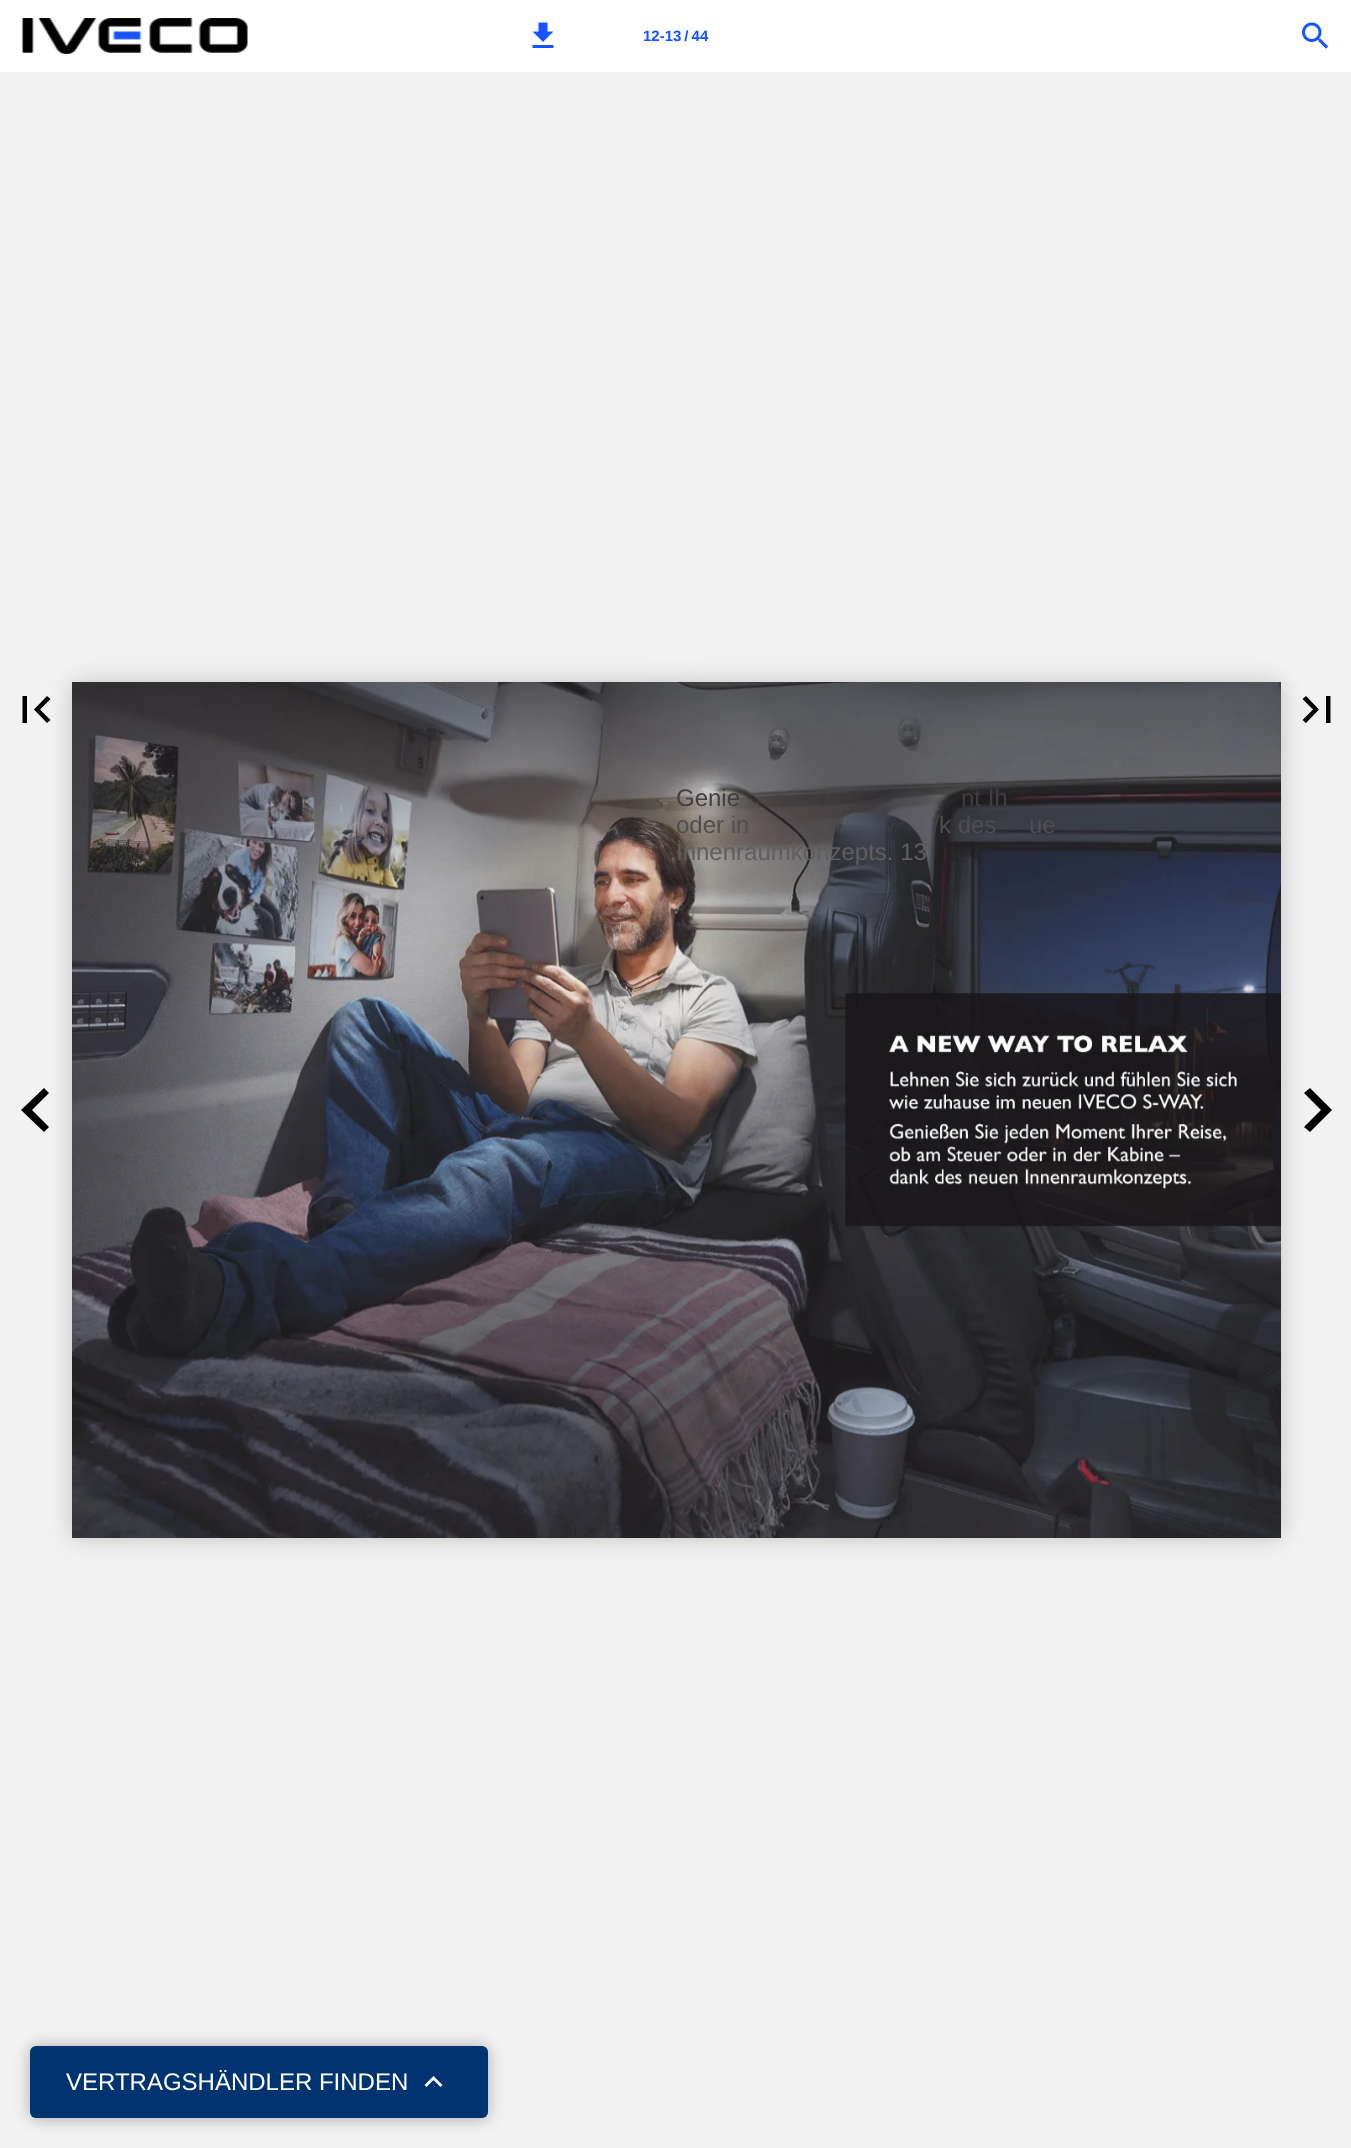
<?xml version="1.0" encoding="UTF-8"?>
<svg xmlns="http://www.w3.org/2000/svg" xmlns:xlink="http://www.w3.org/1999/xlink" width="1351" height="2148">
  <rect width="100%" height="100%" fill="#f2f2f2" />
  <rect width="1351" height="72" fill="#ffffff" />
  <image x="22" y="18" width="226" height="36" xlink:href="image1.png" />
  <image x="532" y="22" width="22" height="26" xlink:href="image2.png" />
  <image x="1302" y="22" width="27" height="27" xlink:href="image3.png" />
  <rect x="72" y="683" width="605" height="855" fill="#000000" fill-opacity="0.2" filter="blur(12px)" />
  <path d="M 50.5 720 l -10.5 -10.5 l 10.5 -10.5 l -3.5 -3 l -13 13.5 l 13 13.5 z m -28 -24 h 4.5 v 27 h -4.5 z" fill="#000000" />
  <path d="M 49 1093 l -5 -5 l -23 22 l 23 22 l 5 -5 l -17 -17 z" fill="#000000" />
  <rect x="677" y="683" width="604" height="855" fill="#000000" fill-opacity="0.2" filter="blur(12px)" />
  <image x="72" y="682" width="1209" height="856" xlink:href="image4.png" />
  <image x="845" y="993" width="436" height="234" xlink:href="image5.png" />
  <path d="M 1302.5 699 l 10.5 10.5 l -10.5 10.5 l 3.5 3 l 13 -13.5 l -13 -13.5 z m 23.5 -3 h 4.5 v 27 h -4.5 z" fill="#000000" />
  <path d="M 1310 1088 l -6 5 l 17 17 l -17 17 l 6 5 l 22 -22 z" fill="#000000" />
  <rect x="29" y="2045" width="460" height="75" rx="8" fill="#000000" fill-opacity="0.25" filter="blur(7.5px)" />
  <rect x="30" y="2046" width="458" height="72" rx="6" fill="#00336f" />
  <path d="M 426.5 2087 l 7 -7 l 7 7 l 2 -2 l -9 -9 l -9 9 z" fill="#ffffff" />
  <text x="643" y="41" style="font-family: Liberation Sans; font-size: 15px; font-weight: bold; fill: #1554ff">12-13 / 44</text>
  <text x="676" y="806" style="font-family: Liberation Sans; font-size: 24px; fill: #423e41">Genie</text>
  <text x="961" y="806" style="font-family: Liberation Sans; font-size: 24px; fill: #423e41">nt Ih</text>
  <text x="676" y="833" style="font-family: Liberation Sans; font-size: 24px; fill: #504e51">oder in</text>
  <text x="939" y="833" style="font-family: Liberation Sans; font-size: 24px; fill: #504e51">k des</text>
  <text x="1029" y="833" style="font-family: Liberation Sans; font-size: 24px; fill: #504e51">ue</text>
  <text x="676" y="860" style="font-family: Liberation Sans; font-size: 24px; fill: #605e5f">Innenraumkonzepts. 13</text>
  <text x="66" y="2090" style="font-family: Liberation Sans; font-size: 24px; fill: #ffffff">VERTRAGSHÄNDLER FINDEN</text>
</svg>
